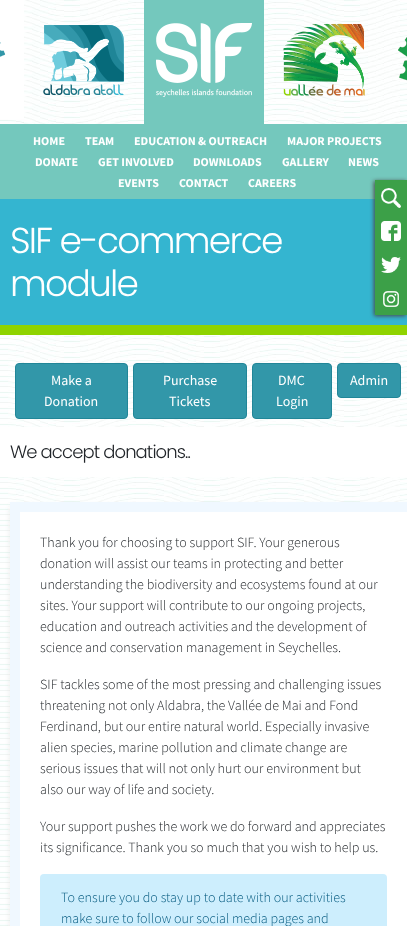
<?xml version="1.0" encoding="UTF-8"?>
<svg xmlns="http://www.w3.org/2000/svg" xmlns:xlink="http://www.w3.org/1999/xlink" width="407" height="926">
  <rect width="100%" height="100%" fill="#ffffff" />
  <image x="0" y="0" width="407" height="926" xlink:href="image1.png" />
  <rect width="24" height="119" fill="#ffffff" />
  <image x="0" y="42" width="6" height="15" xlink:href="image2.png" />
  <image x="43" y="25" width="81" height="70" xlink:href="image3.png" />
  <rect x="144" width="120" height="124" fill="#74c8bd" />
  <image x="156" y="23" width="96" height="74" xlink:href="image4.png" />
  <image x="283" y="23" width="82" height="73" xlink:href="image5.png" />
  <image x="398" y="37" width="9" height="44" xlink:href="image6.png" />
  <rect y="124" width="407" height="75" fill="#74c8bd" />
  <rect y="199" width="407" height="126" fill="#34b5d0" />
  <rect x="374" y="181" width="32" height="135" fill="#4a4545" filter="blur(2px)" />
  <rect x="375" y="180" width="32" height="135" fill="#3ca048" />
  <image x="381" y="188" width="20" height="20" xlink:href="image7.png" />
  <image x="381" y="221" width="20" height="20" xlink:href="image8.png" />
  <image x="381" y="257" width="20" height="16" xlink:href="image9.png" />
  <image x="383" y="291" width="16" height="16" xlink:href="image10.png" />
  <rect y="325" width="407" height="10" fill="#8fd300" />
  <rect x="15.5" y="363.5" width="112" height="55" rx="3.5" fill="#3297a9" stroke="#218698" />
  <rect x="133.5" y="363.5" width="113" height="55" rx="3.5" fill="#3297a9" stroke="#218698" />
  <rect x="252.5" y="363.5" width="79" height="55" rx="3.5" fill="#3297a9" stroke="#218698" />
  <rect x="337.5" y="363.5" width="63" height="34" rx="3.5" fill="#3297a9" stroke="#218698" />
  <rect y="427" width="407" height="50" fill="#ffffff" />
  <rect x="11" y="507" width="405" height="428" fill="#000000" fill-opacity="0.1" filter="blur(3px)" />
  <rect x="15" y="507" width="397" height="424" fill="#ffffff" stroke="#f0f8ff" stroke-width="10" />
  <rect x="40" y="874" width="347" height="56" rx="4" fill="#cdeefd" />
  <text x="33" y="145" style="font-family: Source Sans Pro; font-size: 12px; font-weight: bold; fill: #ffffff">HOME</text>
  <text x="85" y="145" style="font-family: Source Sans Pro; font-size: 12px; font-weight: bold; fill: #ffffff">TEAM</text>
  <text x="134" y="145" style="font-family: Source Sans Pro; font-size: 12px; font-weight: bold; fill: #ffffff">EDUCATION &amp; OUTREACH</text>
  <text x="287" y="145" style="font-family: Source Sans Pro; font-size: 12px; font-weight: bold; fill: #ffffff">MAJOR PROJECTS</text>
  <text x="35" y="166" style="font-family: Source Sans Pro; font-size: 12px; font-weight: bold; fill: #ffffff">DONATE</text>
  <text x="98" y="166" style="font-family: Source Sans Pro; font-size: 12px; font-weight: bold; fill: #ffffff">GET INVOLVED</text>
  <text x="193" y="166" style="font-family: Source Sans Pro; font-size: 12px; font-weight: bold; fill: #ffffff">DOWNLOADS</text>
  <text x="282" y="166" style="font-family: Source Sans Pro; font-size: 12px; font-weight: bold; fill: #ffffff">GALLERY</text>
  <text x="348" y="166" style="font-family: Source Sans Pro; font-size: 12px; font-weight: bold; fill: #ffffff">NEWS</text>
  <text x="118" y="187" style="font-family: Source Sans Pro; font-size: 12px; font-weight: bold; fill: #ffffff">EVENTS</text>
  <text x="179" y="187" style="font-family: Source Sans Pro; font-size: 12px; font-weight: bold; fill: #ffffff">CONTACT</text>
  <text x="248" y="187" style="font-family: Source Sans Pro; font-size: 12px; font-weight: bold; fill: #ffffff">CAREERS</text>
  <text x="10" y="253" style="font-family: Poppins; font-size: 36px; font-weight: 300; letter-spacing: -1.75px; fill: #ffffff">SIF e-commerce</text>
  <text x="10" y="296" style="font-family: Poppins; font-size: 36px; font-weight: 300; letter-spacing: -1.75px; fill: #ffffff">module</text>
  <text x="51" y="385" style="font-family: Source Sans Pro; font-size: 14px; fill: #ffffff">Make a</text>
  <text x="44" y="406" style="font-family: Source Sans Pro; font-size: 14px; fill: #ffffff">Donation</text>
  <text x="163" y="385" style="font-family: Source Sans Pro; font-size: 14px; fill: #ffffff">Purchase</text>
  <text x="169" y="406" style="font-family: Source Sans Pro; font-size: 14px; fill: #ffffff">Tickets</text>
  <text x="278" y="385" style="font-family: Source Sans Pro; font-size: 14px; fill: #ffffff">DMC</text>
  <text x="276" y="406" style="font-family: Source Sans Pro; font-size: 14px; fill: #ffffff">Login</text>
  <text x="350" y="385" style="font-family: Source Sans Pro; font-size: 14px; fill: #ffffff">Admin</text>
  <text x="10" y="458" style="font-family: Poppins; font-size: 18px; font-weight: 300; letter-spacing: -0.9px; fill: #212529">We accept donations..</text>
  <text x="40" y="547" style="font-family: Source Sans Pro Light; font-size: 14px; font-weight: 300; fill: #212529">Thank you for choosing to support SIF. Your generous</text>
  <text x="40" y="568" style="font-family: Source Sans Pro Light; font-size: 14px; font-weight: 300; fill: #212529">donation will assist our teams in protecting and better</text>
  <text x="40" y="589" style="font-family: Source Sans Pro Light; font-size: 14px; font-weight: 300; fill: #212529">understanding the biodiversity and ecosystems found at our</text>
  <text x="40" y="610" style="font-family: Source Sans Pro Light; font-size: 14px; font-weight: 300; fill: #212529">sites. Your support will contribute to our ongoing projects,</text>
  <text x="40" y="631" style="font-family: Source Sans Pro Light; font-size: 14px; font-weight: 300; fill: #212529">education and outreach activities and the development of</text>
  <text x="40" y="652" style="font-family: Source Sans Pro Light; font-size: 14px; font-weight: 300; fill: #212529">science and conservation management in Seychelles.</text>
  <text x="40" y="689" style="font-family: Source Sans Pro Light; font-size: 14px; font-weight: 300; fill: #212529">SIF tackles some of the most pressing and challenging issues</text>
  <text x="40" y="710" style="font-family: Source Sans Pro Light; font-size: 14px; font-weight: 300; fill: #212529">threatening not only Aldabra, the Vallée de Mai and Fond</text>
  <text x="40" y="731" style="font-family: Source Sans Pro Light; font-size: 14px; font-weight: 300; fill: #212529">Ferdinand, but our entire natural world. Especially invasive</text>
  <text x="40" y="752" style="font-family: Source Sans Pro Light; font-size: 14px; font-weight: 300; fill: #212529">alien species, marine pollution and climate change are</text>
  <text x="40" y="773" style="font-family: Source Sans Pro Light; font-size: 14px; font-weight: 300; fill: #212529">serious issues that will not only hurt our environment but</text>
  <text x="40" y="794" style="font-family: Source Sans Pro Light; font-size: 14px; font-weight: 300; fill: #212529">also our way of life and society.</text>
  <text x="40" y="831" style="font-family: Source Sans Pro Light; font-size: 14px; font-weight: 300; fill: #212529">Your support pushes the work we do forward and appreciates</text>
  <text x="40" y="852" style="font-family: Source Sans Pro Light; font-size: 14px; font-weight: 300; fill: #212529">its significance. Thank you so much that you wish to help us.</text>
  <text x="61" y="902" style="font-family: Source Sans Pro Light; font-size: 14px; font-weight: 300; fill: #02587e">To ensure you do stay up to date with our activities</text>
  <text x="61" y="923" style="font-family: Source Sans Pro Light; font-size: 14px; font-weight: 300; fill: #02587e">make sure to follow our social media pages and</text>
</svg>
